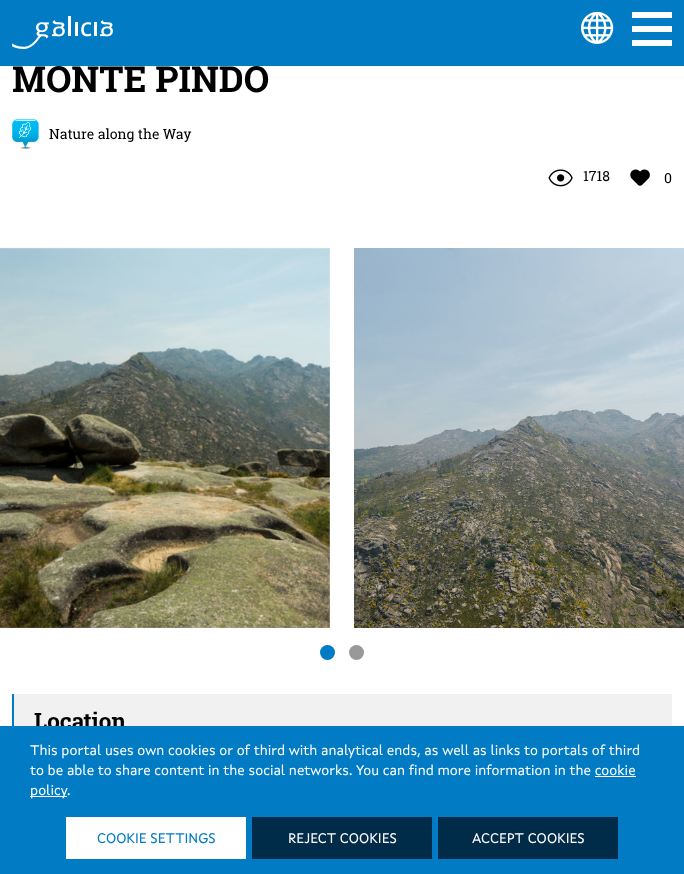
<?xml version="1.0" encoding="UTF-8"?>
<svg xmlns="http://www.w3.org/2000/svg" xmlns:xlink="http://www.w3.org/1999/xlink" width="684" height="874">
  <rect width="100%" height="100%" fill="#ffffff" />
  <rect width="684" height="66" fill="#007bc4" />
  <image x="12" y="16" width="101" height="33" xlink:href="image1.png" />
  <image x="581" y="11" width="33" height="33" xlink:href="image2.png" />
  <rect x="632" y="12" width="40" height="6" fill="#ffffff" />
  <rect x="632" y="26" width="40" height="6" fill="#ffffff" />
  <rect x="632" y="40" width="40" height="6" fill="#ffffff" />
  <image x="12" y="119" width="27" height="30" xlink:href="image3.png" />
  <image x="548" y="169" width="25" height="18" xlink:href="image4.png" />
  <image x="630" y="169" width="20" height="17" xlink:href="image5.png" />
  <image x="0" y="247" width="330" height="381" xlink:href="image6.png" />
  <image x="354" y="248" width="330" height="380" xlink:href="image7.png" />
  <circle cx="327.5" cy="652.5" r="7.5" fill="#007bc4" />
  <circle cx="356.5" cy="652.5" r="7.5" fill="#999999" />
  <rect x="14" y="694" width="658" height="32" fill="#f1f1f1" />
  <rect x="12" y="694" width="2" height="32" fill="#007bc4" />
  <text x="12" y="92" style="font-family: Roboto Slab; font-size: 36px; font-weight: bold; fill: #000000">MONTE PINDO</text>
  <text x="49" y="139" style="font-family: Roboto Slab; font-size: 14px; fill: #000000">Nature along the Way</text>
  <text x="583" y="181" style="font-family: Roboto Slab; font-size: 14px; fill: #000000">1718</text>
  <text x="664" y="183" style="font-family: Roboto Slab; font-size: 14px; fill: #000000">0</text>
  <text x="34" y="729" style="font-family: Roboto Slab; font-size: 22.5px; font-weight: bold; fill: #000000">Location</text>
  <rect y="726" width="684" height="148" fill="#007bc4" />
  <text x="30" y="755" style="font-family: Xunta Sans; font-size: 14px; fill: #ffffff">This portal uses own cookies or of third with analytical ends, as well as links to portals of third</text>
  <text x="30" y="775" style="font-family: Xunta Sans; font-size: 14px; fill: #ffffff">to be able to share content in the social networks. You can find more information in the cookie</text>
  <rect x="595" y="776" width="41" height="1" fill="#ffffff" />
  <rect x="30" y="796" width="37" height="1" fill="#ffffff" />
  <text x="30" y="795" style="font-family: Xunta Sans; font-size: 14px; fill: #ffffff">policy</text>
  <text x="67" y="795" style="font-family: Xunta Sans; font-size: 14px; fill: #ffffff">.</text>
  <rect x="66" y="817" width="180" height="42" fill="#ffffff" />
  <text x="97" y="843" style="font-family: Xunta Sans; font-size: 14px; fill: #007bc4">COOKIE SETTINGS</text>
  <rect x="252" y="817" width="180" height="42" fill="#002b49" />
  <text x="288" y="843" style="font-family: Xunta Sans; font-size: 14px; fill: #ffffff">REJECT COOKIES</text>
  <rect x="438" y="817" width="180" height="42" fill="#002b49" />
  <text x="472" y="843" style="font-family: Xunta Sans; font-size: 14px; fill: #ffffff">ACCEPT COOKIES</text>
</svg>
